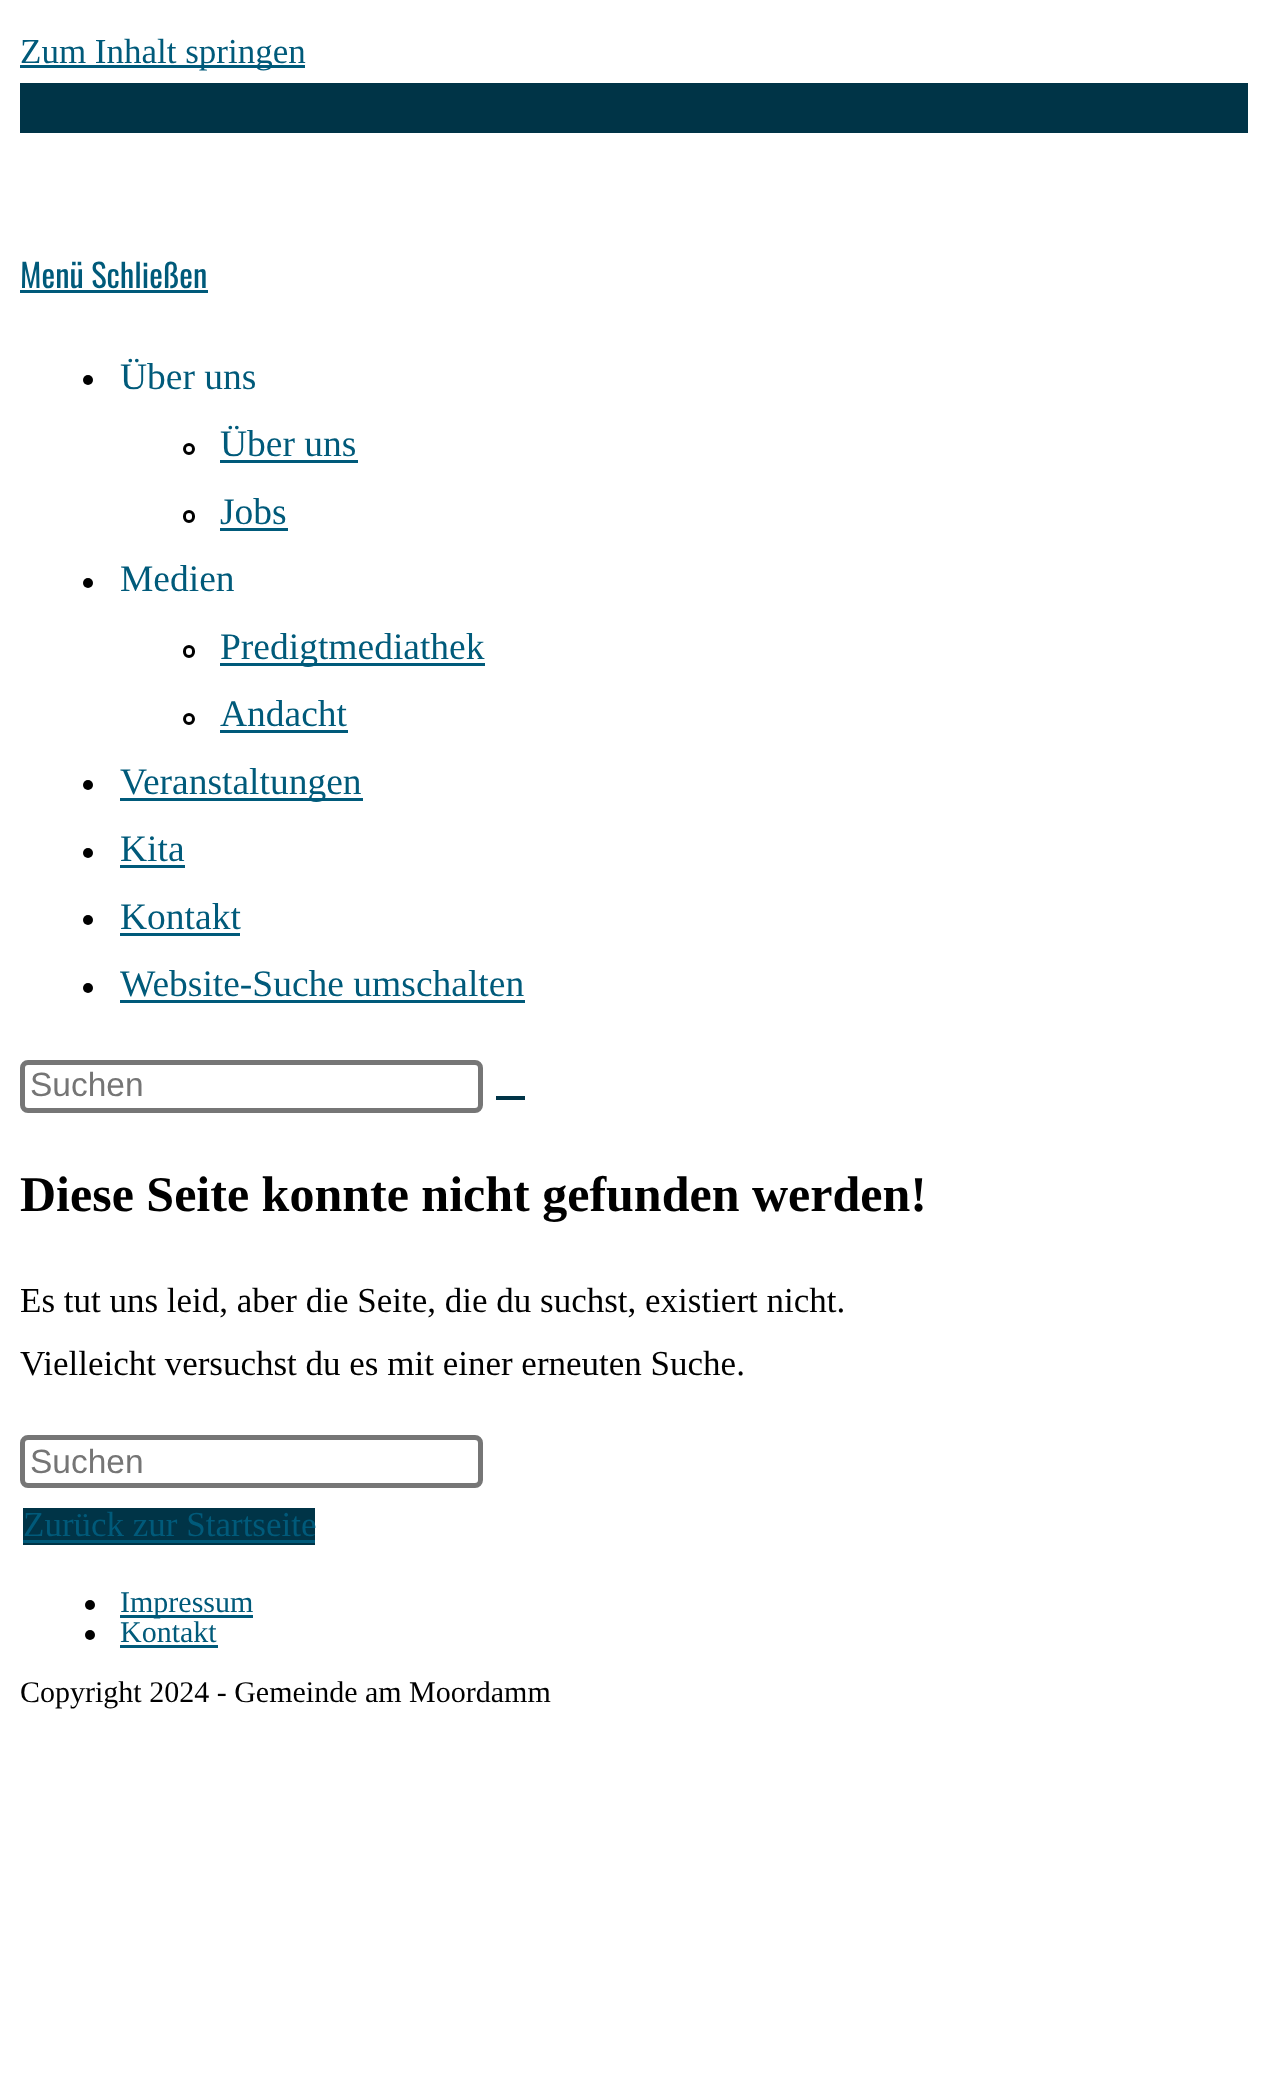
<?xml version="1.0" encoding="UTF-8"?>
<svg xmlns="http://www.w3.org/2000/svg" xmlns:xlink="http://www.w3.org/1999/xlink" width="1267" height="2078">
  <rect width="100%" height="100%" fill="#ffffff" />
  <rect x="20" y="65" width="285" height="3" fill="#005a7a" />
  <rect x="20" y="83" width="1228" height="50" fill="#003447" />
  <rect x="20" y="290" width="188" height="3" fill="#005a7a" />
  <circle cx="88" cy="380" r="5" fill="#000000" />
  <circle cx="189" cy="449" r="4.5" fill="none" stroke="#000000" stroke-width="3" />
  <rect x="220" y="460" width="138" height="3" fill="#005a7a" />
  <rect x="184.5" y="511.5" width="9" height="10" rx="4.5" fill="none" stroke="#000000" stroke-width="3" />
  <rect x="220" y="528" width="68" height="3" fill="#005a7a" />
  <circle cx="88" cy="583" r="5" fill="#000000" />
  <rect x="184.5" y="646.5" width="9" height="10" rx="4.5" fill="none" stroke="#000000" stroke-width="3" />
  <rect x="220" y="663" width="265" height="3" fill="#005a7a" />
  <circle cx="189" cy="719" r="4.5" fill="none" stroke="#000000" stroke-width="3" />
  <rect x="220" y="730" width="128" height="3" fill="#005a7a" />
  <circle cx="88" cy="785" r="5" fill="#000000" />
  <rect x="120" y="798" width="243" height="3" fill="#005a7a" />
  <circle cx="88" cy="853" r="5" fill="#000000" />
  <rect x="120" y="865" width="65" height="3" fill="#005a7a" />
  <circle cx="88" cy="920" r="5" fill="#000000" />
  <rect x="120" y="933" width="120" height="3" fill="#005a7a" />
  <circle cx="88" cy="988" r="5" fill="#000000" />
  <rect x="120" y="1000" width="405" height="3" fill="#005a7a" />
  <rect x="22.5" y="1062.5" width="458" height="48" rx="5.5" fill="none" stroke="#767676" stroke-width="5" />
  <rect x="496" y="1096" width="29" height="4" fill="#003447" />
  <rect x="22.5" y="1437.5" width="458" height="48" rx="5.5" fill="none" stroke="#767676" stroke-width="5" />
  <rect x="23" y="1508" width="292" height="37" fill="#003447" />
  <rect x="23" y="1540" width="292" height="3" fill="#005a7a" />
  <circle cx="90" cy="1605" r="5" fill="#000000" />
  <rect x="120" y="1615" width="133" height="3" fill="#005a7a" />
  <circle cx="90" cy="1635" r="5" fill="#000000" />
  <rect x="120" y="1645" width="98" height="3" fill="#005a7a" />
  <text x="20" y="63" style="font-family: Liberation Serif; font-size: 35px; fill: #005a7a">Zum Inhalt springen</text>
  <text x="20" y="288" style="font-family: Oswald; font-size: 32.5px; fill: #005a7a">Menü Schließen</text>
  <text x="120" y="389" style="font-family: Liberation Serif; font-size: 37.5px; fill: #005a7a">Über uns</text>
  <text x="220" y="456" style="font-family: Liberation Serif; font-size: 37.5px; fill: #005a7a">Über uns</text>
  <text x="220" y="524" style="font-family: Liberation Serif; font-size: 37.5px; fill: #005a7a">Jobs</text>
  <text x="120" y="591" style="font-family: Liberation Serif; font-size: 37.5px; fill: #005a7a">Medien</text>
  <text x="220" y="659" style="font-family: Liberation Serif; font-size: 37.5px; fill: #005a7a">Predigtmediathek</text>
  <text x="220" y="726" style="font-family: Liberation Serif; font-size: 37.5px; fill: #005a7a">Andacht</text>
  <text x="120" y="794" style="font-family: Liberation Serif; font-size: 37.5px; fill: #005a7a">Veranstaltungen</text>
  <text x="120" y="861" style="font-family: Liberation Serif; font-size: 37.5px; fill: #005a7a">Kita</text>
  <text x="120" y="929" style="font-family: Liberation Serif; font-size: 37.5px; fill: #005a7a">Kontakt</text>
  <text x="120" y="996" style="font-family: Liberation Serif; font-size: 37.5px; fill: #005a7a">Website-Suche umschalten</text>
  <text x="30" y="1096" style="font-family: Liberation Sans; font-size: 33.5px; fill: #757575">Suchen</text>
  <text x="20" y="1211" style="font-family: Liberation Serif; font-size: 50px; font-weight: bold; fill: #000000">Diese Seite konnte nicht gefunden werden!</text>
  <text x="20" y="1312" style="font-family: Liberation Serif; font-size: 35px; fill: #000000">Es tut uns leid, aber die Seite, die du suchst, existiert nicht.</text>
  <text x="20" y="1375" style="font-family: Liberation Serif; font-size: 35px; fill: #000000">Vielleicht versuchst du es mit einer erneuten Suche.</text>
  <text x="30" y="1473" style="font-family: Liberation Sans; font-size: 33.5px; fill: #757575">Suchen</text>
  <text x="23" y="1536" style="font-family: Liberation Serif; font-size: 35px; fill: #005a7a">Zurück zur Startseite</text>
  <text x="120" y="1612" style="font-family: Liberation Serif; font-size: 30px; fill: #005a7a">Impressum</text>
  <text x="120" y="1642" style="font-family: Liberation Serif; font-size: 30px; fill: #005a7a">Kontakt</text>
  <text x="20" y="1702" style="font-family: Liberation Serif; font-size: 30px; fill: #000000">Copyright 2024 - Gemeinde am Moordamm</text>
</svg>
